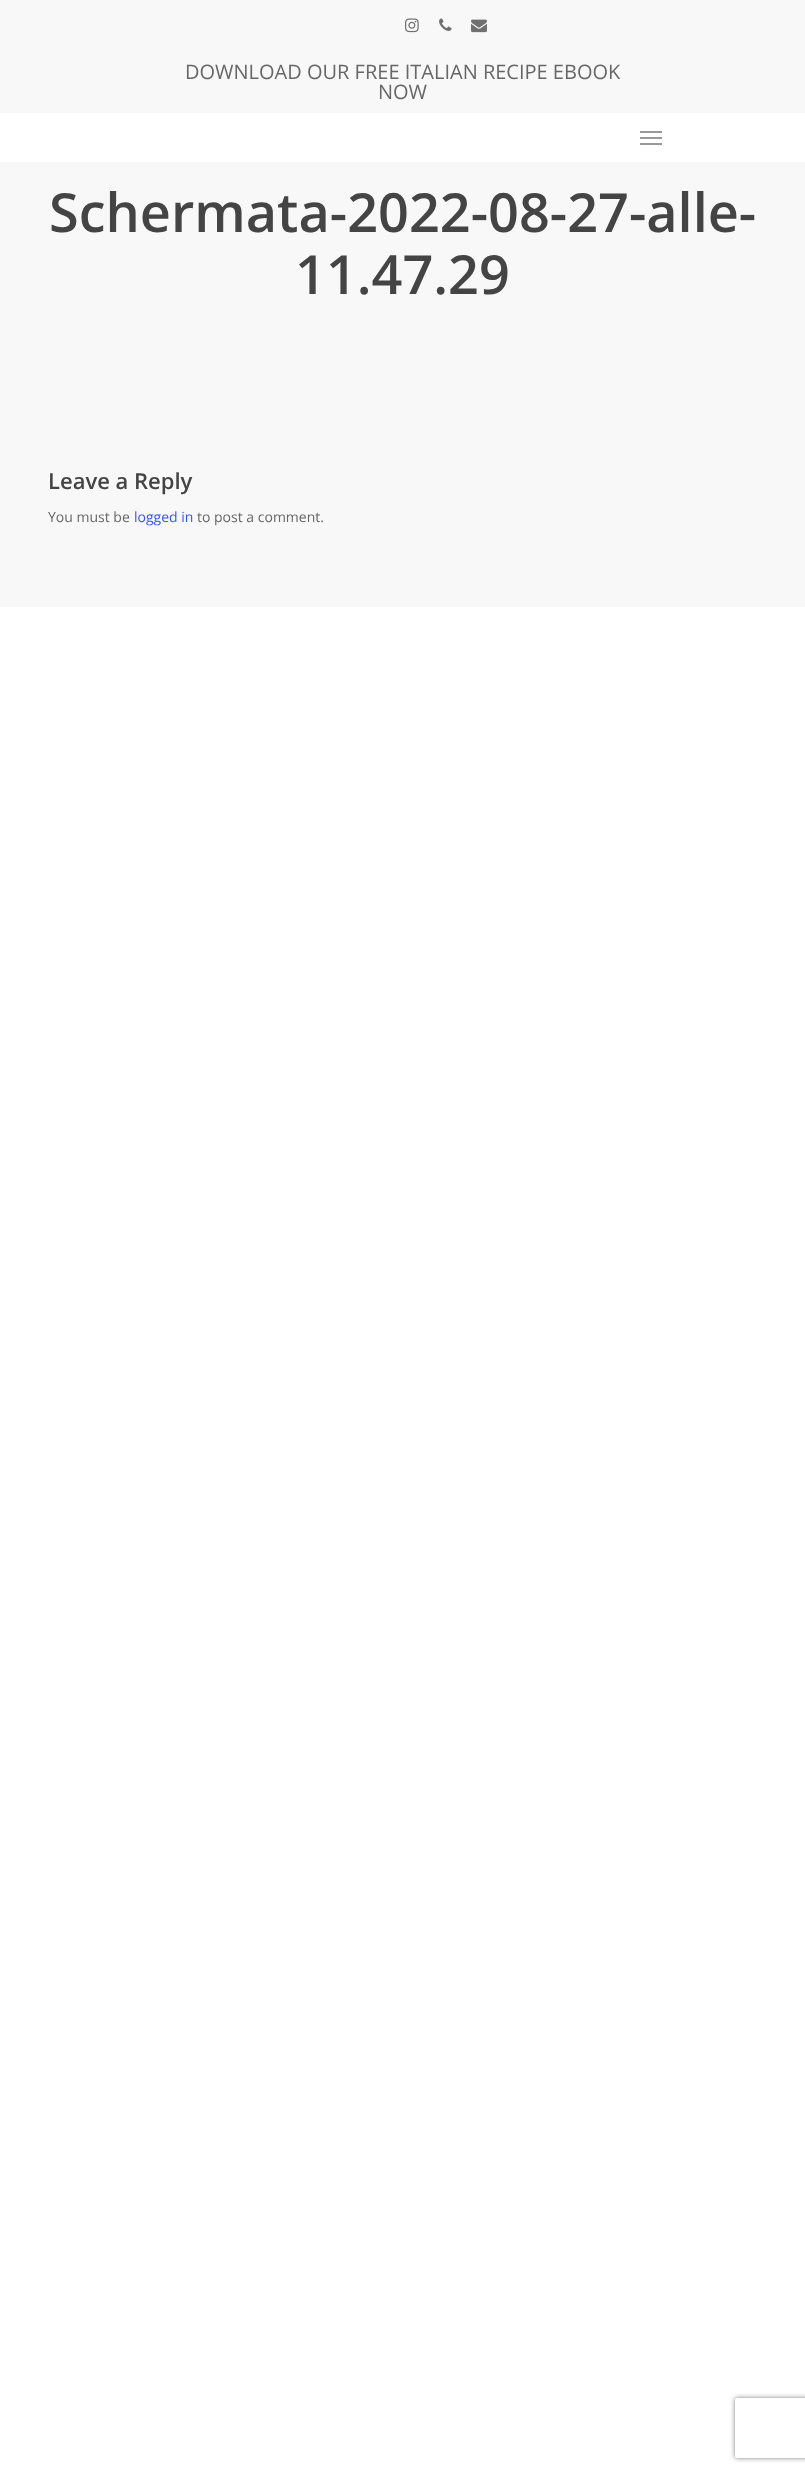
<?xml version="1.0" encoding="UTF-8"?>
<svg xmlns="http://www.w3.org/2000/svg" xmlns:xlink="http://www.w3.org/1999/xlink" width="805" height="2472">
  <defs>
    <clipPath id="clip1"><path d="M 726 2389 h 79 v 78 h -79 z m 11 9 h 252 c 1 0 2 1 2 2 v 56 c 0 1 -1 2 -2 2 h -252 c -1 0 -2 -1 -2 -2 v -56 c 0 -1 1 -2 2 -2 z" clip-rule="evenodd" /></clipPath>
  </defs>
  <rect width="100%" height="100%" fill="#ffffff" />
  <rect width="805" height="113" fill="#f8f8f8" />
  <image x="405" y="18" width="14" height="15" xlink:href="image1.png" />
  <image x="439" y="18" width="13" height="13" xlink:href="image2.png" />
  <image x="471" y="19" width="16" height="14" xlink:href="image3.png" />
  <rect x="640" y="131" width="22" height="2" fill="#999999" />
  <rect x="640" y="143" width="22" height="2" fill="#999999" />
  <rect x="640" y="137" width="22" height="2" fill="#999999" />
  <rect y="162" width="805" height="445" fill="#f8f8f8" />
  <g clip-path="url(#clip1)">
    <rect x="735" y="2398" width="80" height="60" rx="2" fill="#808080" filter="blur(2.5px)" />
  </g>
  <text x="185" y="79" style="font-family: Open Sans; font-size: 20px; fill: #676767">DOWNLOAD OUR FREE ITALIAN RECIPE EBOOK</text>
  <text x="378" y="99" style="font-family: Open Sans; font-size: 20px; fill: #676767">NOW</text>
  <text x="49" y="232" style="font-family: Open Sans; font-size: 54px; font-weight: 600; fill: #444444">Schermata-2022-08-27-alle-</text>
  <text x="295" y="294" style="font-family: Open Sans; font-size: 54px; font-weight: 600; fill: #444444">11.47.29</text>
  <text x="48" y="489" style="font-family: Open Sans; font-size: 22px; font-weight: 600; fill: #444444">Leave a Reply</text>
  <text x="48" y="522" style="font-family: Open Sans; font-size: 14px; fill: #676767">You must be</text>
  <text x="134" y="522" style="font-family: Open Sans; font-size: 14px; fill: #3555ff">logged in</text>
  <text x="197" y="522" style="font-family: Open Sans; font-size: 14px; fill: #676767">to post a comment.</text>
</svg>
